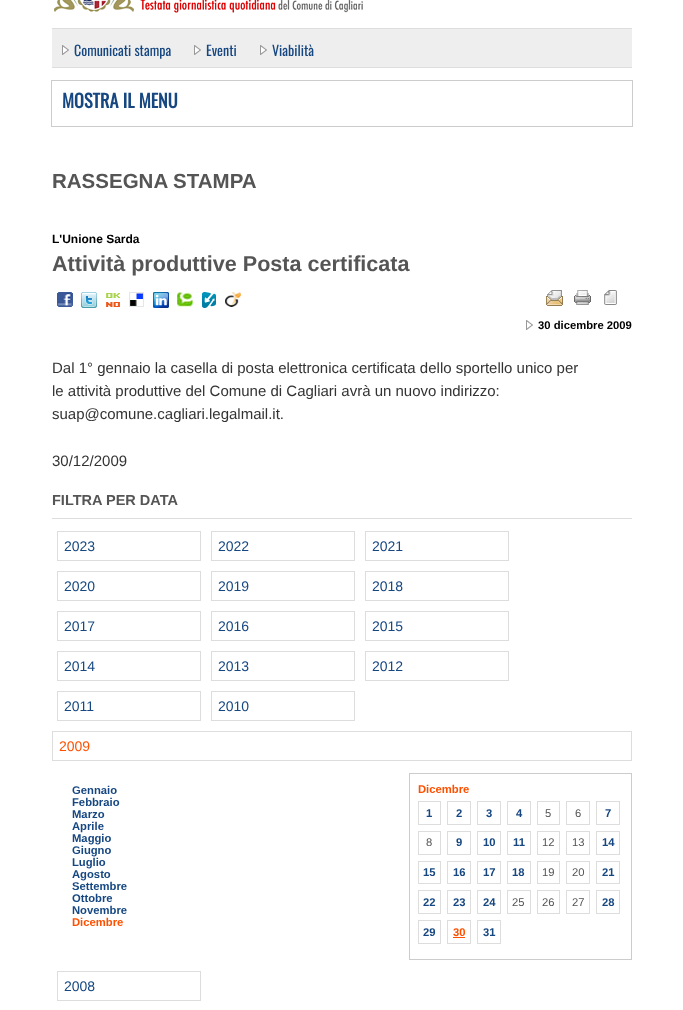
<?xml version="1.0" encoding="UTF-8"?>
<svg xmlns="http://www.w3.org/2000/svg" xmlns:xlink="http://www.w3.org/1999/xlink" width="683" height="1010">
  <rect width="100%" height="100%" fill="#ffffff" />
  <image x="54" y="0" width="309" height="13" xlink:href="image1.png" />
  <rect x="52" y="29" width="580" height="38" fill="#eeeeee" />
  <rect x="52" y="28" width="580" height="1" fill="#dddddd" />
  <rect x="52" y="67" width="580" height="1" fill="#dddddd" />
  <image x="62" y="45" width="7" height="10" xlink:href="image2.png" />
  <image x="194" y="45" width="7" height="10" xlink:href="image2.png" />
  <image x="260" y="45" width="7" height="10" xlink:href="image2.png" />
  <rect x="51.5" y="80.5" width="581" height="46" fill="none" stroke="#cccccc" />
  <image x="57" y="292" width="16" height="15" xlink:href="image3.png" />
  <image x="81" y="292" width="16" height="16" xlink:href="image4.png" />
  <image x="106" y="293" width="14" height="14" xlink:href="image5.png" />
  <image x="129" y="292" width="15" height="15" xlink:href="image6.png" />
  <image x="153" y="292" width="16" height="16" xlink:href="image7.png" />
  <image x="177" y="292" width="16" height="15" xlink:href="image8.png" />
  <image x="202" y="292" width="14" height="16" xlink:href="image9.png" />
  <image x="225" y="292" width="16" height="15" xlink:href="image10.png" />
  <image x="546" y="290" width="17" height="16" xlink:href="image11.png" />
  <image x="574" y="290" width="17" height="15" xlink:href="image12.png" />
  <image x="604" y="290" width="13" height="15" xlink:href="image13.png" />
  <image x="526" y="320" width="7" height="10" xlink:href="image14.png" />
  <rect x="52" y="518" width="580" height="1" fill="#dddddd" />
  <rect x="57.5" y="531.5" width="143" height="29" fill="none" stroke="#dddddd" />
  <rect x="211.5" y="531.5" width="143" height="29" fill="none" stroke="#dddddd" />
  <rect x="365.5" y="531.5" width="143" height="29" fill="none" stroke="#dddddd" />
  <rect x="57.5" y="571.5" width="143" height="29" fill="none" stroke="#dddddd" />
  <rect x="211.5" y="571.5" width="143" height="29" fill="none" stroke="#dddddd" />
  <rect x="365.5" y="571.5" width="143" height="29" fill="none" stroke="#dddddd" />
  <rect x="57.5" y="611.5" width="143" height="29" fill="none" stroke="#dddddd" />
  <rect x="211.5" y="611.5" width="143" height="29" fill="none" stroke="#dddddd" />
  <rect x="365.5" y="611.5" width="143" height="29" fill="none" stroke="#dddddd" />
  <rect x="57.5" y="651.5" width="143" height="29" fill="none" stroke="#dddddd" />
  <rect x="211.5" y="651.5" width="143" height="29" fill="none" stroke="#dddddd" />
  <rect x="365.5" y="651.5" width="143" height="29" fill="none" stroke="#dddddd" />
  <rect x="57.5" y="691.5" width="143" height="29" fill="none" stroke="#dddddd" />
  <rect x="211.5" y="691.5" width="143" height="29" fill="none" stroke="#dddddd" />
  <rect x="52.5" y="731.5" width="579" height="29" fill="none" stroke="#dddddd" />
  <rect x="409.5" y="773.5" width="222" height="186" fill="none" stroke="#cccccc" />
  <rect x="418.5" y="801.5" width="22" height="23" fill="none" stroke="#dddddd" />
  <rect x="447.5" y="801.5" width="23" height="23" fill="none" stroke="#dddddd" />
  <rect x="477.5" y="801.5" width="23" height="23" fill="none" stroke="#dddddd" />
  <rect x="507.5" y="801.5" width="23" height="23" fill="none" stroke="#dddddd" />
  <rect x="537.5" y="801.5" width="22" height="23" fill="none" stroke="#dddddd" />
  <rect x="566.5" y="801.5" width="23" height="23" fill="none" stroke="#dddddd" />
  <rect x="596.5" y="801.5" width="23" height="23" fill="none" stroke="#dddddd" />
  <rect x="418.5" y="831.5" width="22" height="23" fill="none" stroke="#dddddd" />
  <rect x="447.5" y="831.5" width="23" height="23" fill="none" stroke="#dddddd" />
  <rect x="477.5" y="831.5" width="23" height="23" fill="none" stroke="#dddddd" />
  <rect x="507.5" y="831.5" width="23" height="23" fill="none" stroke="#dddddd" />
  <rect x="537.5" y="831.5" width="22" height="23" fill="none" stroke="#dddddd" />
  <rect x="566.5" y="831.5" width="23" height="23" fill="none" stroke="#dddddd" />
  <rect x="596.5" y="831.5" width="23" height="23" fill="none" stroke="#dddddd" />
  <rect x="418.5" y="861.5" width="22" height="22" fill="none" stroke="#dddddd" />
  <rect x="447.5" y="861.5" width="23" height="22" fill="none" stroke="#dddddd" />
  <rect x="477.5" y="861.5" width="23" height="22" fill="none" stroke="#dddddd" />
  <rect x="507.5" y="861.5" width="23" height="22" fill="none" stroke="#dddddd" />
  <rect x="537.5" y="861.5" width="22" height="22" fill="none" stroke="#dddddd" />
  <rect x="566.5" y="861.5" width="23" height="22" fill="none" stroke="#dddddd" />
  <rect x="596.5" y="861.5" width="23" height="22" fill="none" stroke="#dddddd" />
  <rect x="418.5" y="890.5" width="22" height="23" fill="none" stroke="#dddddd" />
  <rect x="447.5" y="890.5" width="23" height="23" fill="none" stroke="#dddddd" />
  <rect x="477.5" y="890.5" width="23" height="23" fill="none" stroke="#dddddd" />
  <rect x="507.5" y="890.5" width="23" height="23" fill="none" stroke="#dddddd" />
  <rect x="537.5" y="890.5" width="22" height="23" fill="none" stroke="#dddddd" />
  <rect x="566.5" y="890.5" width="23" height="23" fill="none" stroke="#dddddd" />
  <rect x="596.5" y="890.5" width="23" height="23" fill="none" stroke="#dddddd" />
  <rect x="418.5" y="920.5" width="22" height="23" fill="none" stroke="#dddddd" />
  <rect x="447.5" y="920.5" width="23" height="23" fill="none" stroke="#dddddd" />
  <rect x="453" y="937" width="12" height="1" fill="#ff5000" />
  <rect x="477.5" y="920.5" width="23" height="23" fill="none" stroke="#dddddd" />
  <rect x="57.5" y="971.5" width="143" height="29" fill="none" stroke="#dddddd" />
  <text x="74" y="56" style="font-family: Oswald; font-size: 14px; fill: #164781">Comunicati stampa</text>
  <text x="206" y="56" style="font-family: Oswald; font-size: 14px; fill: #164781">Eventi</text>
  <text x="272" y="56" style="font-family: Oswald; font-size: 14px; fill: #164781">Viabilità</text>
  <text x="62" y="108" style="font-family: Oswald; font-size: 18.25px; font-weight: bold; fill: #164781">MOSTRA IL MENU</text>
  <text x="52" y="188" style="font-family: Liberation Sans; font-size: 20.5px; font-weight: bold; fill: #555555">RASSEGNA STAMPA</text>
  <text x="52" y="243" style="font-family: Liberation Sans; font-size: 12px; font-weight: bold; fill: #000000">L'Unione Sarda</text>
  <text x="52" y="271" style="font-family: Liberation Sans; font-size: 21.6px; font-weight: bold; fill: #555555">Attività produttive Posta certificata</text>
  <text x="538" y="329" style="font-family: Liberation Sans; font-size: 11.25px; font-weight: bold; fill: #000000">30 dicembre 2009</text>
  <text x="52" y="373" style="font-family: Liberation Sans; font-size: 15px; fill: #333333">Dal 1° gennaio la casella di posta elettronica certificata dello sportello unico per</text>
  <text x="52" y="396" style="font-family: Liberation Sans; font-size: 15px; fill: #333333">le attività produttive del Comune di Cagliari avrà un nuovo indirizzo:</text>
  <text x="52" y="419" style="font-family: Liberation Sans; font-size: 15px; fill: #333333">suap@comune.cagliari.legalmail.it.</text>
  <text x="52" y="466" style="font-family: Liberation Sans; font-size: 15px; fill: #333333">30/12/2009</text>
  <text x="52" y="505" style="font-family: Liberation Sans; font-size: 14.5px; font-weight: bold; fill: #555555">FILTRA PER DATA</text>
  <text x="64" y="551" style="font-family: Liberation Sans; font-size: 14px; fill: #164781">2023</text>
  <text x="218" y="551" style="font-family: Liberation Sans; font-size: 14px; fill: #164781">2022</text>
  <text x="372" y="551" style="font-family: Liberation Sans; font-size: 14px; fill: #164781">2021</text>
  <text x="64" y="591" style="font-family: Liberation Sans; font-size: 14px; fill: #164781">2020</text>
  <text x="218" y="591" style="font-family: Liberation Sans; font-size: 14px; fill: #164781">2019</text>
  <text x="372" y="591" style="font-family: Liberation Sans; font-size: 14px; fill: #164781">2018</text>
  <text x="64" y="631" style="font-family: Liberation Sans; font-size: 14px; fill: #164781">2017</text>
  <text x="218" y="631" style="font-family: Liberation Sans; font-size: 14px; fill: #164781">2016</text>
  <text x="372" y="631" style="font-family: Liberation Sans; font-size: 14px; fill: #164781">2015</text>
  <text x="64" y="671" style="font-family: Liberation Sans; font-size: 14px; fill: #164781">2014</text>
  <text x="218" y="671" style="font-family: Liberation Sans; font-size: 14px; fill: #164781">2013</text>
  <text x="372" y="671" style="font-family: Liberation Sans; font-size: 14px; fill: #164781">2012</text>
  <text x="64" y="711" style="font-family: Liberation Sans; font-size: 14px; fill: #164781">2011</text>
  <text x="218" y="711" style="font-family: Liberation Sans; font-size: 14px; fill: #164781">2010</text>
  <text x="59" y="751" style="font-family: Liberation Sans; font-size: 14px; fill: #ff5000">2009</text>
  <text x="72" y="794" style="font-family: Liberation Sans; font-size: 11.25px; font-weight: bold; fill: #164781">Gennaio</text>
  <text x="72" y="806" style="font-family: Liberation Sans; font-size: 11.25px; font-weight: bold; fill: #164781">Febbraio</text>
  <text x="72" y="818" style="font-family: Liberation Sans; font-size: 11.25px; font-weight: bold; fill: #164781">Marzo</text>
  <text x="72" y="830" style="font-family: Liberation Sans; font-size: 11.25px; font-weight: bold; fill: #164781">Aprile</text>
  <text x="72" y="842" style="font-family: Liberation Sans; font-size: 11.25px; font-weight: bold; fill: #164781">Maggio</text>
  <text x="72" y="854" style="font-family: Liberation Sans; font-size: 11.25px; font-weight: bold; fill: #164781">Giugno</text>
  <text x="72" y="866" style="font-family: Liberation Sans; font-size: 11.25px; font-weight: bold; fill: #164781">Luglio</text>
  <text x="72" y="878" style="font-family: Liberation Sans; font-size: 11.25px; font-weight: bold; fill: #164781">Agosto</text>
  <text x="72" y="890" style="font-family: Liberation Sans; font-size: 11.25px; font-weight: bold; fill: #164781">Settembre</text>
  <text x="72" y="902" style="font-family: Liberation Sans; font-size: 11.25px; font-weight: bold; fill: #164781">Ottobre</text>
  <text x="72" y="914" style="font-family: Liberation Sans; font-size: 11.25px; font-weight: bold; fill: #164781">Novembre</text>
  <text x="72" y="926" style="font-family: Liberation Sans; font-size: 11.25px; font-weight: bold; fill: #ff5000">Dicembre</text>
  <text x="418" y="793" style="font-family: Liberation Sans; font-size: 11.25px; font-weight: bold; fill: #ff5000">Dicembre</text>
  <text x="426" y="817" style="font-family: Liberation Sans; font-size: 11.25px; font-weight: bold; fill: #164781">1</text>
  <text x="456" y="817" style="font-family: Liberation Sans; font-size: 11.25px; font-weight: bold; fill: #164781">2</text>
  <text x="486" y="817" style="font-family: Liberation Sans; font-size: 11.25px; font-weight: bold; fill: #164781">3</text>
  <text x="516" y="817" style="font-family: Liberation Sans; font-size: 11.25px; font-weight: bold; fill: #164781">4</text>
  <text x="545" y="817" style="font-family: Liberation Sans; font-size: 11.25px; fill: #555555">5</text>
  <text x="575" y="817" style="font-family: Liberation Sans; font-size: 11.25px; fill: #555555">6</text>
  <text x="605" y="817" style="font-family: Liberation Sans; font-size: 11.25px; font-weight: bold; fill: #164781">7</text>
  <text x="426" y="846" style="font-family: Liberation Sans; font-size: 11.25px; fill: #555555">8</text>
  <text x="456" y="846" style="font-family: Liberation Sans; font-size: 11.25px; font-weight: bold; fill: #164781">9</text>
  <text x="483" y="846" style="font-family: Liberation Sans; font-size: 11.25px; font-weight: bold; fill: #164781">10</text>
  <text x="513" y="846" style="font-family: Liberation Sans; font-size: 11.25px; font-weight: bold; fill: #164781">11</text>
  <text x="542" y="846" style="font-family: Liberation Sans; font-size: 11.25px; fill: #555555">12</text>
  <text x="572" y="846" style="font-family: Liberation Sans; font-size: 11.25px; fill: #555555">13</text>
  <text x="602" y="846" style="font-family: Liberation Sans; font-size: 11.25px; font-weight: bold; fill: #164781">14</text>
  <text x="423" y="876" style="font-family: Liberation Sans; font-size: 11.25px; font-weight: bold; fill: #164781">15</text>
  <text x="453" y="876" style="font-family: Liberation Sans; font-size: 11.25px; font-weight: bold; fill: #164781">16</text>
  <text x="483" y="876" style="font-family: Liberation Sans; font-size: 11.25px; font-weight: bold; fill: #164781">17</text>
  <text x="512" y="876" style="font-family: Liberation Sans; font-size: 11.25px; font-weight: bold; fill: #164781">18</text>
  <text x="542" y="876" style="font-family: Liberation Sans; font-size: 11.25px; fill: #555555">19</text>
  <text x="572" y="876" style="font-family: Liberation Sans; font-size: 11.25px; fill: #555555">20</text>
  <text x="602" y="876" style="font-family: Liberation Sans; font-size: 11.25px; font-weight: bold; fill: #164781">21</text>
  <text x="423" y="906" style="font-family: Liberation Sans; font-size: 11.25px; font-weight: bold; fill: #164781">22</text>
  <text x="453" y="906" style="font-family: Liberation Sans; font-size: 11.25px; font-weight: bold; fill: #164781">23</text>
  <text x="483" y="906" style="font-family: Liberation Sans; font-size: 11.25px; font-weight: bold; fill: #164781">24</text>
  <text x="512" y="906" style="font-family: Liberation Sans; font-size: 11.25px; fill: #555555">25</text>
  <text x="542" y="906" style="font-family: Liberation Sans; font-size: 11.25px; fill: #555555">26</text>
  <text x="572" y="906" style="font-family: Liberation Sans; font-size: 11.25px; fill: #555555">27</text>
  <text x="602" y="906" style="font-family: Liberation Sans; font-size: 11.25px; font-weight: bold; fill: #164781">28</text>
  <text x="423" y="936" style="font-family: Liberation Sans; font-size: 11.25px; font-weight: bold; fill: #164781">29</text>
  <text x="453" y="936" style="font-family: Liberation Sans; font-size: 11.25px; font-weight: bold; fill: #ff5000">30</text>
  <text x="483" y="936" style="font-family: Liberation Sans; font-size: 11.25px; font-weight: bold; fill: #164781">31</text>
  <text x="64" y="991" style="font-family: Liberation Sans; font-size: 14px; fill: #164781">2008</text>
</svg>
